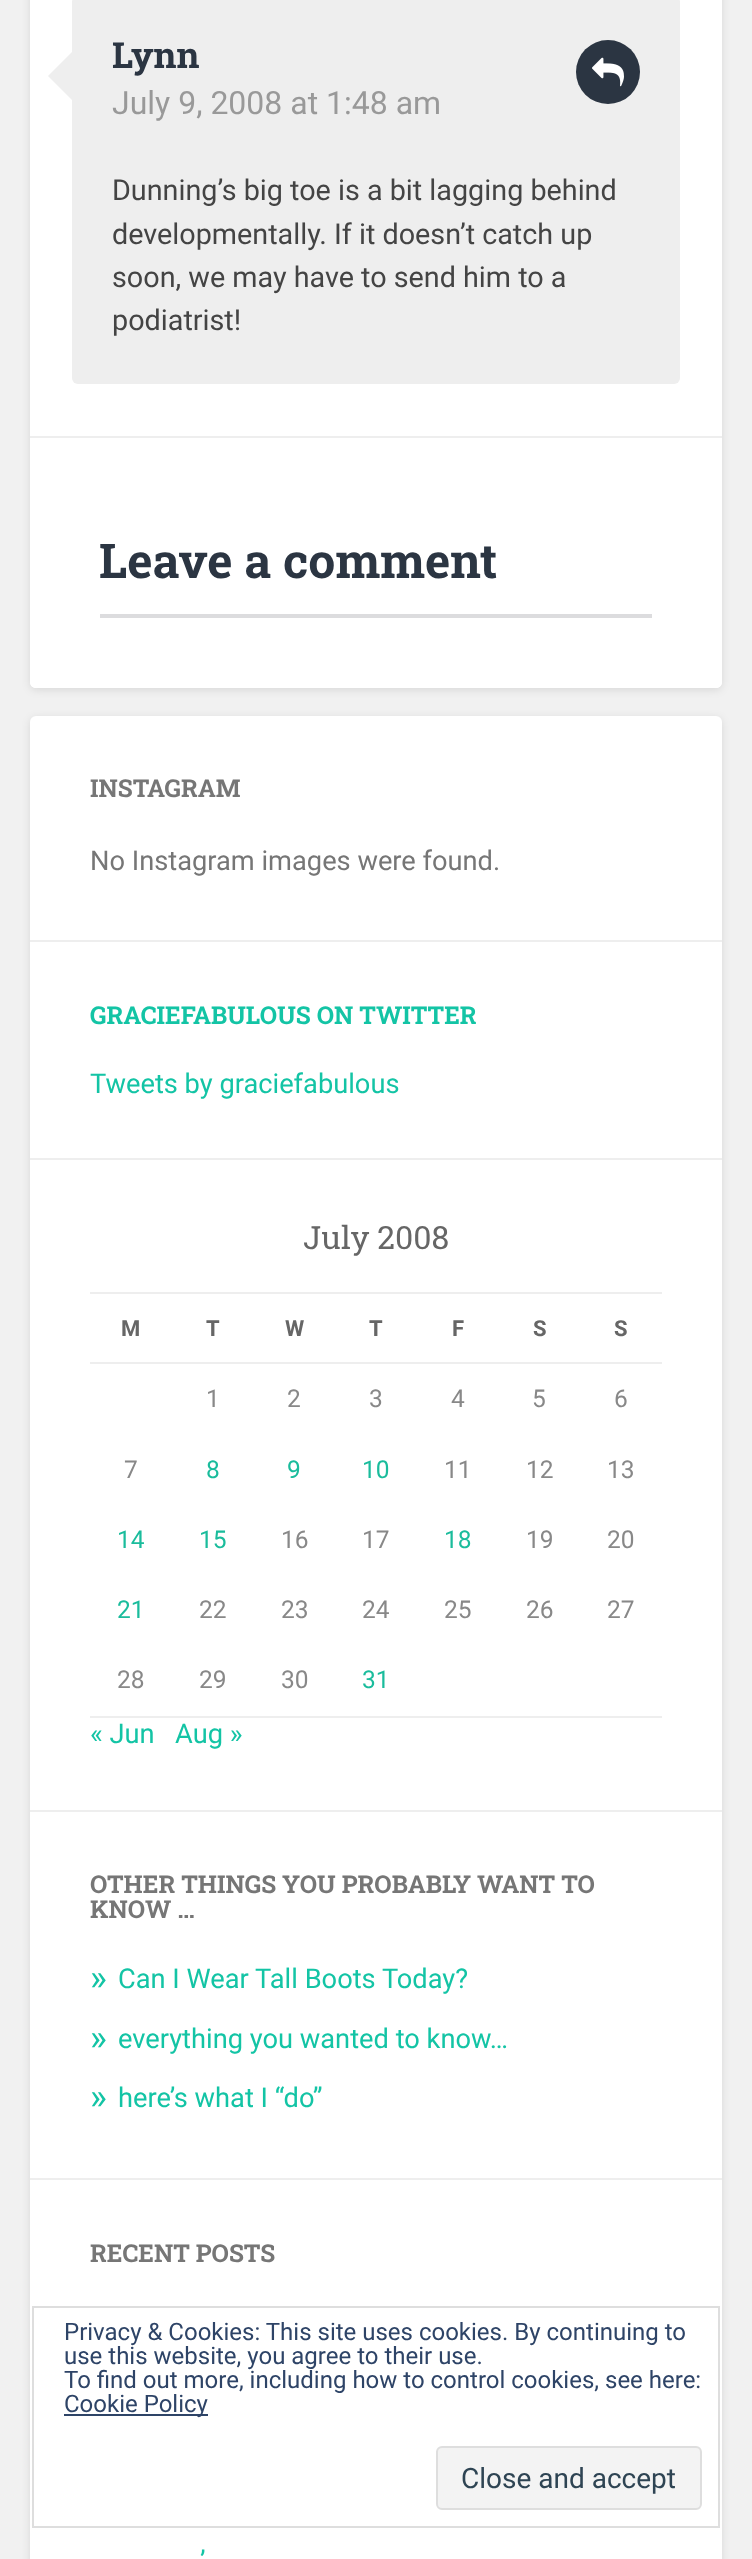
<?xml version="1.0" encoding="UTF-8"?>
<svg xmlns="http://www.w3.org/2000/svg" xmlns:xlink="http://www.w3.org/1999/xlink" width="752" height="2559">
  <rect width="100%" height="100%" fill="#f1f1f1" />
  <rect x="30" y="-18" width="692" height="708" rx="6" fill="#000000" fill-opacity="0.1" filter="blur(4px)" />
  <rect x="30" y="-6" width="692" height="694" rx="6" fill="#ffffff" />
  <rect x="72" y="-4" width="608" height="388" rx="6" fill="#eeeeee" />
  <path d="M 72 52 v 48 l -24 -24 z" fill="#eeeeee" />
  <circle cx="608" cy="72" r="32" fill="#2b3542" />
  <image x="592" y="57" width="32" height="30" xlink:href="image1.png" />
  <path d="M 30 436 h 692 v 246 c 0 3.5 -2.5 6 -6 6 h -680 c -3.5 0 -6 -2.5 -6 -6 z" fill="#ffffff" />
  <rect x="30" y="436" width="692" height="2" fill="#eeeeee" />
  <rect x="100" y="614" width="552" height="4" fill="#dcdcde" />
  <rect x="30" y="718" width="692" height="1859" rx="6" fill="#000000" fill-opacity="0.1" filter="blur(4px)" />
  <rect x="30" y="716" width="692" height="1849" rx="6" fill="#ffffff" />
  <rect x="30" y="940" width="692" height="2" fill="#eeeeee" />
  <rect x="30" y="1158" width="692" height="2" fill="#eeeeee" />
  <rect x="90" y="1292" width="572" height="2" fill="#eeeeee" />
  <rect x="90" y="1362" width="572" height="2" fill="#eeeeee" />
  <rect x="90" y="1716" width="572" height="2" fill="#eeeeee" />
  <rect x="30" y="1810" width="692" height="2" fill="#eeeeee" />
  <rect x="30" y="2178" width="692" height="2" fill="#eeeeee" />
  <rect x="33" y="2307" width="686" height="220" fill="none" stroke="#dedede" stroke-width="2" />
  <rect x="64" y="2414" width="144" height="2" fill="#2e4467" />
  <rect x="437" y="2447" width="264" height="62" rx="5" fill="#f3f3f3" stroke="#dedede" stroke-width="2" />
  <text x="112" y="68" style="font-family: Roboto Slab; font-size: 36px; font-weight: bold; fill: #2b3542">Lynn</text>
  <text x="112" y="114" style="font-family: Roboto; font-size: 32px; fill: #999999">July 9, 2008 at 1:48 am</text>
  <text x="112" y="200" style="font-family: Roboto; font-size: 28.75px; fill: #444444">Dunning’s big toe is a bit lagging behind</text>
  <text x="112" y="244" style="font-family: Roboto; font-size: 28.75px; fill: #444444">developmentally. If it doesn’t catch up</text>
  <text x="112" y="287" style="font-family: Roboto; font-size: 28.75px; fill: #444444">soon, we may have to send him to a</text>
  <text x="112" y="330" style="font-family: Roboto; font-size: 28.75px; fill: #444444">podiatrist!</text>
  <text x="99" y="578" style="font-family: Roboto Slab; font-size: 48px; font-weight: bold; fill: #2b3542">Leave a comment</text>
  <text x="90" y="797" style="font-family: Roboto Slab; font-size: 24.5px; font-weight: bold; fill: #767676">INSTAGRAM</text>
  <text x="90" y="870" style="font-family: Roboto; font-size: 27.25px; fill: #767676">No Instagram images were found.</text>
  <text x="90" y="1024" style="font-family: Roboto Slab; font-size: 24.5px; font-weight: bold; fill: #13c4a5">GRACIEFABULOUS ON TWITTER</text>
  <text x="90" y="1093" style="font-family: Roboto; font-size: 27.25px; fill: #13c4a5">Tweets by graciefabulous</text>
  <text x="303" y="1249" style="font-family: Roboto Slab; font-size: 32px; fill: #666666">July 2008</text>
  <text x="121" y="1336" style="font-family: Roboto; font-size: 22px; font-weight: bold; fill: #666666">M</text>
  <text x="206" y="1336" style="font-family: Roboto; font-size: 22px; font-weight: bold; fill: #666666">T</text>
  <text x="285" y="1336" style="font-family: Roboto; font-size: 22px; font-weight: bold; fill: #666666">W</text>
  <text x="369" y="1336" style="font-family: Roboto; font-size: 22px; font-weight: bold; fill: #666666">T</text>
  <text x="452" y="1336" style="font-family: Roboto; font-size: 22px; font-weight: bold; fill: #666666">F</text>
  <text x="533" y="1336" style="font-family: Roboto; font-size: 22px; font-weight: bold; fill: #666666">S</text>
  <text x="614" y="1336" style="font-family: Roboto; font-size: 22px; font-weight: bold; fill: #666666">S</text>
  <text x="206" y="1407" style="font-family: Roboto; font-size: 24.5px; fill: #888888">1</text>
  <text x="287" y="1407" style="font-family: Roboto; font-size: 24.5px; fill: #888888">2</text>
  <text x="369" y="1407" style="font-family: Roboto; font-size: 24.5px; fill: #888888">3</text>
  <text x="451" y="1407" style="font-family: Roboto; font-size: 24.5px; fill: #888888">4</text>
  <text x="532" y="1407" style="font-family: Roboto; font-size: 24.5px; fill: #888888">5</text>
  <text x="614" y="1407" style="font-family: Roboto; font-size: 24.5px; fill: #888888">6</text>
  <text x="124" y="1478" style="font-family: Roboto; font-size: 24.5px; fill: #888888">7</text>
  <text x="206" y="1478" style="font-family: Roboto; font-size: 24.5px; fill: #1abc9c">8</text>
  <text x="287" y="1478" style="font-family: Roboto; font-size: 24.5px; fill: #1abc9c">9</text>
  <text x="362" y="1478" style="font-family: Roboto; font-size: 24.5px; fill: #1abc9c">10</text>
  <text x="444" y="1478" style="font-family: Roboto; font-size: 24.5px; fill: #888888">11</text>
  <text x="526" y="1478" style="font-family: Roboto; font-size: 24.5px; fill: #888888">12</text>
  <text x="607" y="1478" style="font-family: Roboto; font-size: 24.5px; fill: #888888">13</text>
  <text x="117" y="1548" style="font-family: Roboto; font-size: 24.5px; fill: #1abc9c">14</text>
  <text x="199" y="1548" style="font-family: Roboto; font-size: 24.5px; fill: #1abc9c">15</text>
  <text x="281" y="1548" style="font-family: Roboto; font-size: 24.5px; fill: #888888">16</text>
  <text x="362" y="1548" style="font-family: Roboto; font-size: 24.5px; fill: #888888">17</text>
  <text x="444" y="1548" style="font-family: Roboto; font-size: 24.5px; fill: #1abc9c">18</text>
  <text x="526" y="1548" style="font-family: Roboto; font-size: 24.5px; fill: #888888">19</text>
  <text x="607" y="1548" style="font-family: Roboto; font-size: 24.5px; fill: #888888">20</text>
  <text x="117" y="1618" style="font-family: Roboto; font-size: 24.5px; fill: #1abc9c">21</text>
  <text x="199" y="1618" style="font-family: Roboto; font-size: 24.5px; fill: #888888">22</text>
  <text x="281" y="1618" style="font-family: Roboto; font-size: 24.5px; fill: #888888">23</text>
  <text x="362" y="1618" style="font-family: Roboto; font-size: 24.5px; fill: #888888">24</text>
  <text x="444" y="1618" style="font-family: Roboto; font-size: 24.5px; fill: #888888">25</text>
  <text x="526" y="1618" style="font-family: Roboto; font-size: 24.5px; fill: #888888">26</text>
  <text x="607" y="1618" style="font-family: Roboto; font-size: 24.5px; fill: #888888">27</text>
  <text x="117" y="1688" style="font-family: Roboto; font-size: 24.5px; fill: #888888">28</text>
  <text x="199" y="1688" style="font-family: Roboto; font-size: 24.5px; fill: #888888">29</text>
  <text x="281" y="1688" style="font-family: Roboto; font-size: 24.5px; fill: #888888">30</text>
  <text x="362" y="1688" style="font-family: Roboto; font-size: 24.5px; fill: #1abc9c">31</text>
  <text x="90" y="1743" style="font-family: Roboto; font-size: 27.25px; fill: #13c4a5">« Jun</text>
  <text x="175" y="1743" style="font-family: Roboto; font-size: 27.25px; fill: #13c4a5">Aug »</text>
  <text x="90" y="1893" style="font-family: Roboto Slab; font-size: 24.5px; font-weight: bold; fill: #767676">OTHER THINGS YOU PROBABLY WANT TO</text>
  <text x="90" y="1918" style="font-family: Roboto Slab; font-size: 24.5px; font-weight: bold; fill: #767676">KNOW …</text>
  <text x="90" y="1990" style="font-family: Roboto; font-size: 36px; fill: #13c4a5">»</text>
  <text x="118" y="1988" style="font-family: Roboto; font-size: 27.25px; fill: #13c4a5">Can I Wear Tall Boots Today?</text>
  <text x="90" y="2050" style="font-family: Roboto; font-size: 36px; fill: #13c4a5">»</text>
  <text x="118" y="2048" style="font-family: Roboto; font-size: 27.25px; fill: #13c4a5">everything you wanted to know…</text>
  <text x="90" y="2109" style="font-family: Roboto; font-size: 36px; fill: #13c4a5">»</text>
  <text x="118" y="2107" style="font-family: Roboto; font-size: 27.25px; fill: #13c4a5">here’s what I “do”</text>
  <text x="90" y="2262" style="font-family: Roboto Slab; font-size: 24.5px; font-weight: bold; fill: #767676">RECENT POSTS</text>
  <text x="200" y="2570" style="font-family: Roboto; font-size: 27.25px; fill: #13c4a5">’</text>
  <text x="64" y="2340" style="font-family: Roboto; font-size: 24px; fill: #2e4467">Privacy &amp; Cookies: This site uses cookies. By continuing to</text>
  <text x="64" y="2364" style="font-family: Roboto; font-size: 24px; fill: #2e4467">use this website, you agree to their use.</text>
  <text x="64" y="2388" style="font-family: Roboto; font-size: 24px; fill: #2e4467">To find out more, including how to control cookies, see here:</text>
  <text x="64" y="2412" style="font-family: Roboto; font-size: 24px; fill: #2e4467">Cookie Policy</text>
  <text x="461" y="2488" style="font-family: Roboto; font-size: 28px; fill: #2e4453">Close and accept</text>
</svg>
